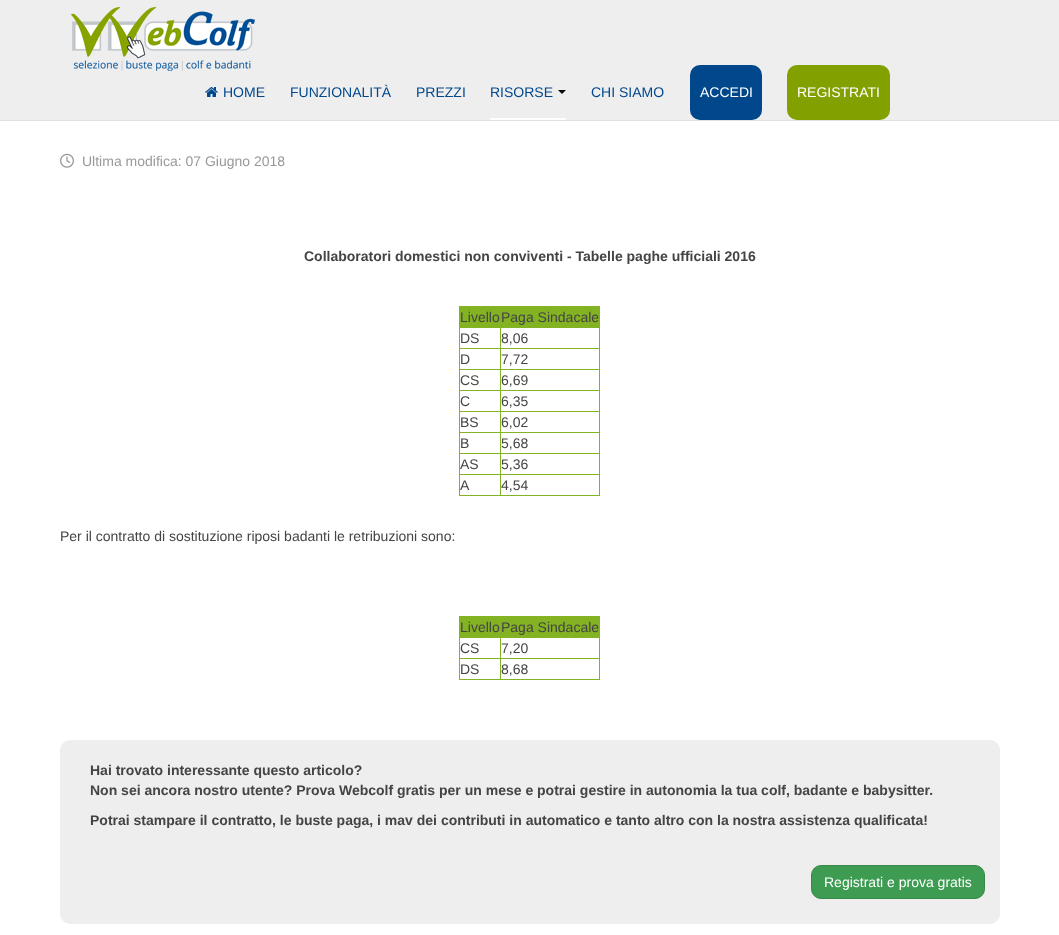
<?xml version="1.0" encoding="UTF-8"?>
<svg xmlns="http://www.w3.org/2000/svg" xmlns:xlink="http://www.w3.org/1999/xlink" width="1059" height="935">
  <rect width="100%" height="100%" fill="#ffffff" />
  <rect width="1059" height="120" fill="#eeeeee" />
  <rect y="120" width="1059" height="1" fill="#e1e1e1" />
  <image x="71" y="7" width="184" height="64" xlink:href="image1.png" />
  <image x="205" y="87" width="13" height="10" xlink:href="image2.png" />
  <rect x="490" y="118" width="76" height="2" fill="#ffffff" />
  <path d="M 558 90 h 8 l -4 4 z" fill="#050505" />
  <rect x="690" y="65" width="72" height="55" rx="10" fill="#00478c" />
  <rect x="787" y="65" width="103" height="55" rx="10" fill="#82a100" />
  <image x="60" y="153" width="14" height="15" xlink:href="image3.png" />
  <rect x="460" y="307" width="139" height="20" fill="#83b222" />
  <rect x="459" y="306" width="141" height="1" fill="#83b222" />
  <rect x="500" y="327" width="100" height="1" fill="#83b222" />
  <rect x="500" y="348" width="100" height="1" fill="#83b222" />
  <rect x="500" y="369" width="100" height="1" fill="#83b222" />
  <rect x="500" y="390" width="100" height="1" fill="#83b222" />
  <rect x="500" y="411" width="100" height="1" fill="#83b222" />
  <rect x="500" y="432" width="100" height="1" fill="#83b222" />
  <rect x="500" y="453" width="100" height="1" fill="#83b222" />
  <rect x="500" y="474" width="100" height="1" fill="#83b222" />
  <rect x="599" y="474" width="1" height="22" fill="#83b222" />
  <rect x="500" y="495" width="100" height="1" fill="#83b222" />
  <rect x="500" y="474" width="1" height="22" fill="#83b222" />
  <rect x="459" y="474" width="42" height="1" fill="#83b222" />
  <rect x="500" y="453" width="1" height="22" fill="#83b222" />
  <rect x="459" y="453" width="42" height="1" fill="#83b222" />
  <rect x="500" y="432" width="1" height="22" fill="#83b222" />
  <rect x="459" y="432" width="42" height="1" fill="#83b222" />
  <rect x="500" y="411" width="1" height="22" fill="#83b222" />
  <rect x="459" y="411" width="42" height="1" fill="#83b222" />
  <rect x="500" y="390" width="1" height="22" fill="#83b222" />
  <rect x="459" y="390" width="42" height="1" fill="#83b222" />
  <rect x="500" y="369" width="1" height="22" fill="#83b222" />
  <rect x="459" y="369" width="42" height="1" fill="#83b222" />
  <rect x="500" y="348" width="1" height="22" fill="#83b222" />
  <rect x="459" y="348" width="42" height="1" fill="#83b222" />
  <rect x="500" y="327" width="1" height="22" fill="#83b222" />
  <rect x="459" y="327" width="42" height="1" fill="#83b222" />
  <rect x="459" y="495" width="42" height="1" fill="#83b222" />
  <rect x="459" y="474" width="1" height="22" fill="#83b222" />
  <rect x="459" y="453" width="1" height="22" fill="#83b222" />
  <rect x="459" y="432" width="1" height="22" fill="#83b222" />
  <rect x="459" y="411" width="1" height="22" fill="#83b222" />
  <rect x="459" y="390" width="1" height="22" fill="#83b222" />
  <rect x="459" y="369" width="1" height="22" fill="#83b222" />
  <rect x="459" y="348" width="1" height="22" fill="#83b222" />
  <rect x="459" y="327" width="1" height="22" fill="#83b222" />
  <rect x="459" y="306" width="1" height="22" fill="#83b222" />
  <rect x="599" y="453" width="1" height="22" fill="#83b222" />
  <rect x="599" y="432" width="1" height="22" fill="#83b222" />
  <rect x="599" y="411" width="1" height="22" fill="#83b222" />
  <rect x="599" y="390" width="1" height="22" fill="#83b222" />
  <rect x="599" y="369" width="1" height="22" fill="#83b222" />
  <rect x="599" y="348" width="1" height="22" fill="#83b222" />
  <rect x="599" y="327" width="1" height="22" fill="#83b222" />
  <rect x="599" y="306" width="1" height="22" fill="#83b222" />
  <rect x="460" y="617" width="139" height="20" fill="#83b222" />
  <rect x="459" y="616" width="141" height="1" fill="#83b222" />
  <rect x="500" y="637" width="100" height="1" fill="#83b222" />
  <rect x="500" y="658" width="100" height="1" fill="#83b222" />
  <rect x="599" y="658" width="1" height="22" fill="#83b222" />
  <rect x="500" y="679" width="100" height="1" fill="#83b222" />
  <rect x="500" y="658" width="1" height="22" fill="#83b222" />
  <rect x="459" y="658" width="42" height="1" fill="#83b222" />
  <rect x="500" y="637" width="1" height="22" fill="#83b222" />
  <rect x="459" y="637" width="42" height="1" fill="#83b222" />
  <rect x="459" y="679" width="42" height="1" fill="#83b222" />
  <rect x="459" y="658" width="1" height="22" fill="#83b222" />
  <rect x="459" y="637" width="1" height="22" fill="#83b222" />
  <rect x="459" y="616" width="1" height="22" fill="#83b222" />
  <rect x="599" y="637" width="1" height="22" fill="#83b222" />
  <rect x="599" y="616" width="1" height="22" fill="#83b222" />
  <rect x="60" y="740" width="940" height="184" rx="10" fill="#eeeeee" />
  <rect x="811.5" y="865.5" width="173" height="33" rx="9.5" fill="#3e9b52" stroke="#378948" />
  <text x="223" y="97" style="font-family: Liberation Sans; font-size: 14px; fill: #00478c">HOME</text>
  <text x="290" y="97" style="font-family: Liberation Sans; font-size: 14px; fill: #00478c">FUNZIONALITÀ</text>
  <text x="416" y="97" style="font-family: Liberation Sans; font-size: 14px; fill: #00478c">PREZZI</text>
  <text x="490" y="97" style="font-family: Liberation Sans; font-size: 14px; fill: #00478c">RISORSE</text>
  <text x="591" y="97" style="font-family: Liberation Sans; font-size: 14px; fill: #00478c">CHI SIAMO</text>
  <text x="700" y="97" style="font-family: Liberation Sans; font-size: 14px; fill: #ffffff">ACCEDI</text>
  <text x="797" y="97" style="font-family: Liberation Sans; font-size: 14px; fill: #ffffff">REGISTRATI</text>
  <text x="82" y="166" style="font-family: Liberation Sans; font-size: 14px; fill: #999999">Ultima modifica: 07 Giugno 2018</text>
  <text x="304" y="261" style="font-family: Liberation Sans; font-size: 14px; font-weight: bold; fill: #444444">Collaboratori domestici non conviventi - Tabelle paghe ufficiali 2016</text>
  <text x="460" y="322" style="font-family: Liberation Sans; font-size: 14px; fill: #444444">Livello</text>
  <text x="501" y="322" style="font-family: Liberation Sans; font-size: 14px; fill: #444444">Paga Sindacale</text>
  <text x="460" y="343" style="font-family: Liberation Sans; font-size: 14px; fill: #444444">DS</text>
  <text x="501" y="343" style="font-family: Liberation Sans; font-size: 14px; fill: #444444">8,06</text>
  <text x="460" y="364" style="font-family: Liberation Sans; font-size: 14px; fill: #444444">D</text>
  <text x="501" y="364" style="font-family: Liberation Sans; font-size: 14px; fill: #444444">7,72</text>
  <text x="460" y="385" style="font-family: Liberation Sans; font-size: 14px; fill: #444444">CS</text>
  <text x="501" y="385" style="font-family: Liberation Sans; font-size: 14px; fill: #444444">6,69</text>
  <text x="460" y="406" style="font-family: Liberation Sans; font-size: 14px; fill: #444444">C</text>
  <text x="501" y="406" style="font-family: Liberation Sans; font-size: 14px; fill: #444444">6,35</text>
  <text x="460" y="427" style="font-family: Liberation Sans; font-size: 14px; fill: #444444">BS</text>
  <text x="501" y="427" style="font-family: Liberation Sans; font-size: 14px; fill: #444444">6,02</text>
  <text x="460" y="448" style="font-family: Liberation Sans; font-size: 14px; fill: #444444">B</text>
  <text x="501" y="448" style="font-family: Liberation Sans; font-size: 14px; fill: #444444">5,68</text>
  <text x="460" y="469" style="font-family: Liberation Sans; font-size: 14px; fill: #444444">AS</text>
  <text x="501" y="469" style="font-family: Liberation Sans; font-size: 14px; fill: #444444">5,36</text>
  <text x="460" y="490" style="font-family: Liberation Sans; font-size: 14px; fill: #444444">A</text>
  <text x="501" y="490" style="font-family: Liberation Sans; font-size: 14px; fill: #444444">4,54</text>
  <text x="60" y="541" style="font-family: Liberation Sans; font-size: 14px; fill: #444444">Per il contratto di sostituzione riposi badanti le retribuzioni sono:</text>
  <text x="460" y="632" style="font-family: Liberation Sans; font-size: 14px; fill: #444444">Livello</text>
  <text x="501" y="632" style="font-family: Liberation Sans; font-size: 14px; fill: #444444">Paga Sindacale</text>
  <text x="460" y="653" style="font-family: Liberation Sans; font-size: 14px; fill: #444444">CS</text>
  <text x="501" y="653" style="font-family: Liberation Sans; font-size: 14px; fill: #444444">7,20</text>
  <text x="460" y="674" style="font-family: Liberation Sans; font-size: 14px; fill: #444444">DS</text>
  <text x="501" y="674" style="font-family: Liberation Sans; font-size: 14px; fill: #444444">8,68</text>
  <text x="90" y="775" style="font-family: Liberation Sans; font-size: 14px; font-weight: bold; fill: #444444">Hai trovato interessante questo articolo?</text>
  <text x="90" y="795" style="font-family: Liberation Sans; font-size: 14px; font-weight: bold; fill: #444444">Non sei ancora nostro utente? Prova Webcolf gratis per un mese e potrai gestire in autonomia la tua colf, badante e babysitter.</text>
  <text x="90" y="825" style="font-family: Liberation Sans; font-size: 14px; font-weight: bold; fill: #444444">Potrai stampare il contratto, le buste paga, i mav dei contributi in automatico e tanto altro con la nostra assistenza qualificata!</text>
  <text x="824" y="887" style="font-family: Liberation Sans; font-size: 14px; fill: #ffffff">Registrati e prova gratis</text>
</svg>
